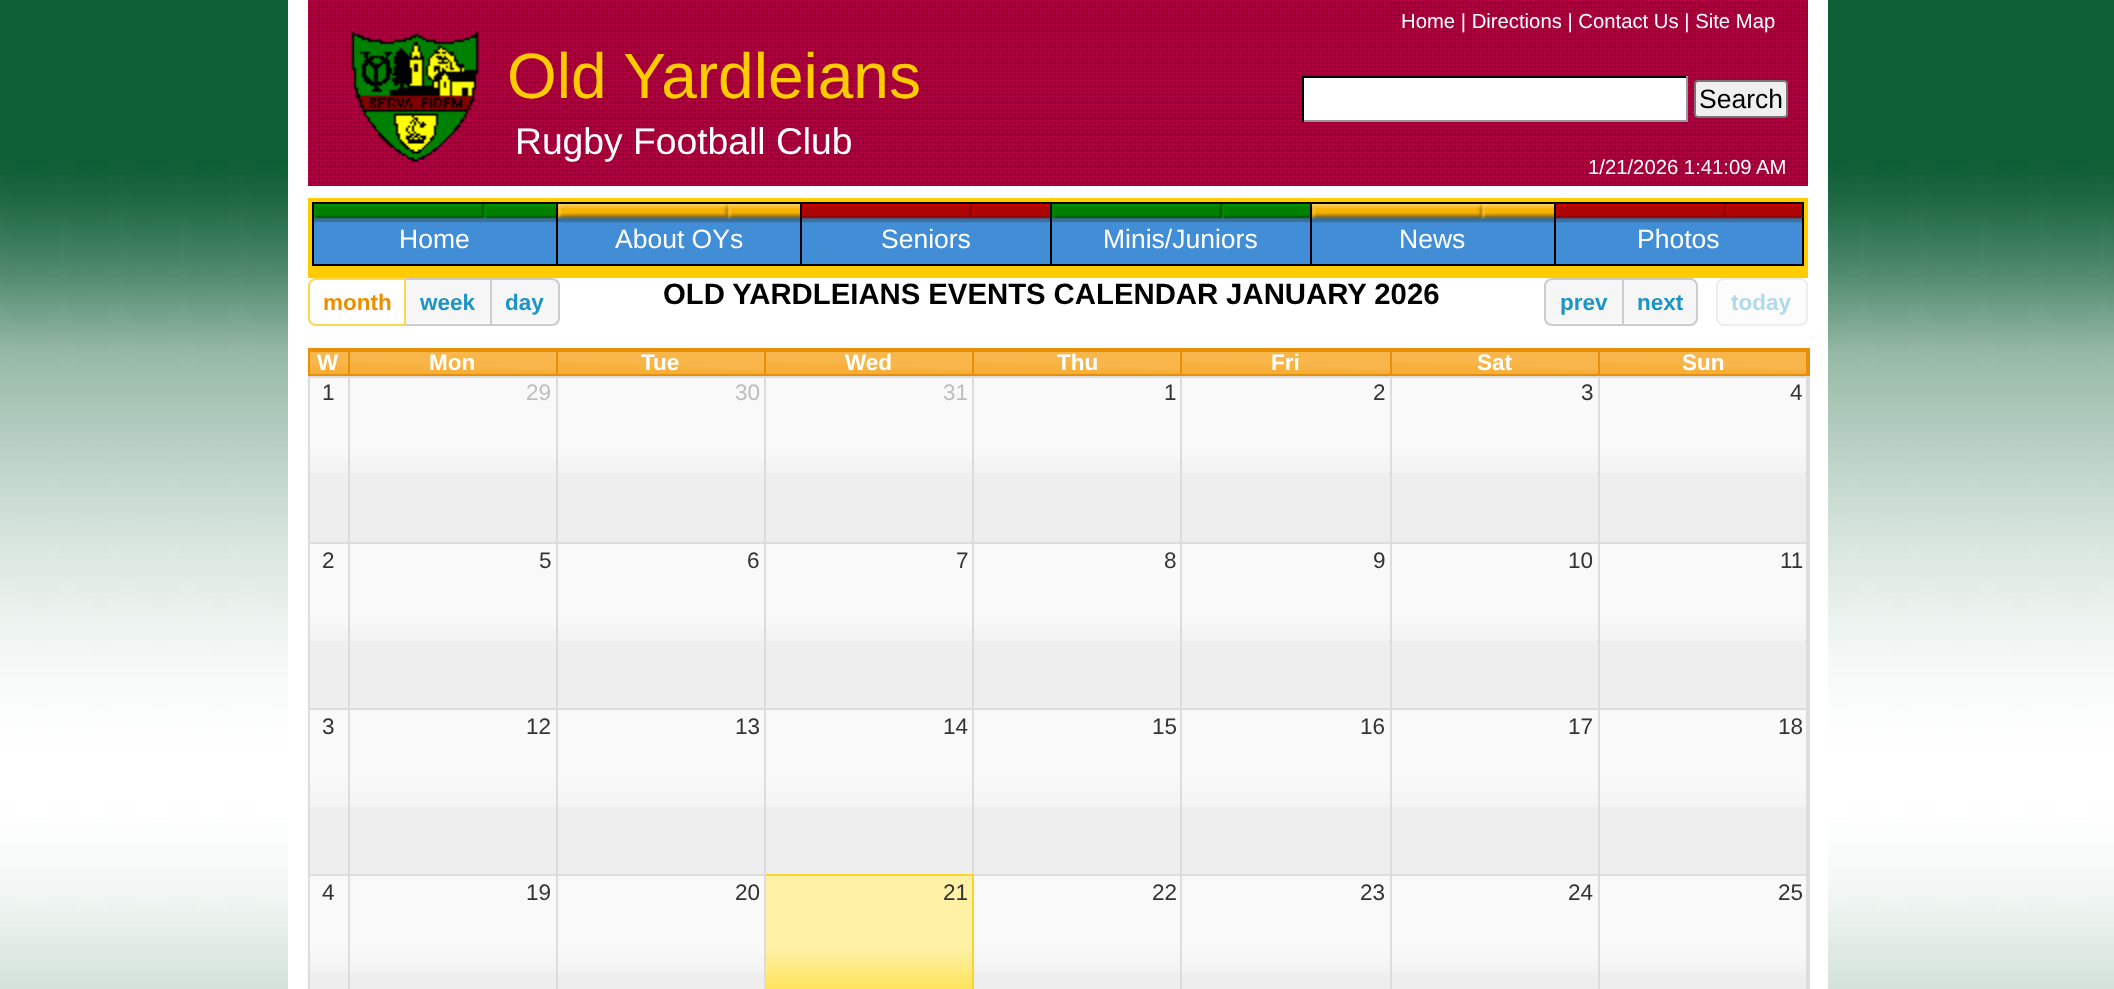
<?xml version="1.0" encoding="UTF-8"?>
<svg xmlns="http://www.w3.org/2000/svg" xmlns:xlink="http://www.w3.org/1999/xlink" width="2114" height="989">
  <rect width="100%" height="100%" fill="#ffffff" />
  <image x="0" y="0" width="2114" height="989" xlink:href="image1.png" />
  <rect x="288" width="1540" height="989" fill="#ffffff" />
  <image x="308" y="0" width="1500" height="186" xlink:href="image2.png" />
  <rect x="1304" y="78" width="382" height="42" fill="#ffffff" />
  <rect x="1302" y="76" width="386" height="2" fill="#000000" />
  <rect x="1686" y="76" width="2" height="46" fill="#999999" />
  <rect x="1302" y="120" width="386" height="2" fill="#999999" />
  <rect x="1302" y="76" width="2" height="46" fill="#000000" />
  <rect x="1695" y="81" width="92" height="36" rx="3" fill="#efefef" stroke="#767676" stroke-width="2" />
  <rect x="308" y="198" width="1500" height="80" fill="#ffcc00" />
  <rect x="313" y="203" width="1490" height="62" fill="none" stroke="#000000" stroke-width="2" />
  <image x="314" y="204" width="242" height="60" xlink:href="image3.png" />
  <rect x="556" y="204" width="2" height="60" fill="#000000" />
  <image x="558" y="204" width="242" height="60" xlink:href="image4.png" />
  <rect x="800" y="204" width="2" height="60" fill="#000000" />
  <image x="802" y="204" width="248" height="60" xlink:href="image5.png" />
  <rect x="1050" y="204" width="2" height="60" fill="#000000" />
  <image x="1052" y="204" width="258" height="60" xlink:href="image6.png" />
  <rect x="1310" y="204" width="2" height="60" fill="#000000" />
  <image x="1312" y="204" width="242" height="60" xlink:href="image4.png" />
  <rect x="1554" y="204" width="2" height="60" fill="#000000" />
  <image x="1556" y="204" width="246" height="60" xlink:href="image7.png" />
  <rect x="404" y="323" width="88" height="1" fill="#fbfbfb" />
  <rect x="406" y="280" width="84" height="43" fill="#f6f6f6" />
  <rect x="405" y="279" width="86" height="46" fill="none" stroke="#cccccc" stroke-width="2" />
  <path d="M 316 279 h 89 v 46 h -89 c -4 0 -7 -3 -7 -7 v -32 c 0 -4 3 -7 7 -7 z" fill="#ffffff" stroke="#fbd850" stroke-width="2" />
  <path d="M 490 278 h 62 c 4.5 0 8 3.5 8 8 v 32 c 0 4.5 -3.5 8 -8 8 h -62 z" fill="#f6f6f6" />
  <rect x="490" y="323" width="67" height="3" fill="#fbfbfb" />
  <path d="M 491 279 h 61 c 4 0 7 3 7 7 v 32 c 0 4 -3 7 -7 7 h -61 z" fill="none" stroke="#cccccc" stroke-width="2" />
  <path d="M 1552 278 h 72 v 48 h -72 c -4.5 0 -8 -3.5 -8 -8 v -32 c 0 -4.5 3.5 -8 8 -8 z" fill="#f6f6f6" />
  <rect x="1547" y="323" width="77" height="3" fill="#fbfbfb" />
  <path d="M 1552 279 h 71 v 46 h -71 c -4 0 -7 -3 -7 -7 v -32 c 0 -4 3 -7 7 -7 z" fill="none" stroke="#cccccc" stroke-width="2" />
  <path d="M 1622 278 h 68 c 4.5 0 8 3.5 8 8 v 32 c 0 4.5 -3.5 8 -8 8 h -68 z" fill="#f6f6f6" />
  <rect x="1622" y="323" width="73" height="3" fill="#fbfbfb" />
  <path d="M 1623 279 h 67 c 4 0 7 3 7 7 v 32 c 0 4 -3 7 -7 7 h -67 z" fill="none" stroke="#cccccc" stroke-width="2" />
  <rect x="1717" y="279" width="90" height="46" rx="7" fill="#fcfcfc" stroke="#ededed" stroke-width="2" />
  <rect x="308" y="348" width="1502" height="2" fill="#e78f08" />
  <rect x="1808" y="374" width="2" height="615" fill="#dddddd" />
  <rect x="1808" y="348" width="2" height="28" fill="#e78f08" />
  <rect x="308" y="374" width="2" height="615" fill="#dddddd" />
  <rect x="308" y="374" width="1502" height="2" fill="#e78f08" />
  <rect x="308" y="348" width="2" height="28" fill="#e78f08" />
  <image x="310" y="352" width="38" height="22" xlink:href="image8.png" />
  <rect x="1598" y="350" width="210" height="2" fill="#e78f08" />
  <rect x="1598" y="350" width="2" height="26" fill="#e78f08" />
  <rect x="1390" y="350" width="210" height="2" fill="#e78f08" />
  <rect x="1390" y="350" width="2" height="26" fill="#e78f08" />
  <rect x="1180" y="350" width="212" height="2" fill="#e78f08" />
  <rect x="1180" y="350" width="2" height="26" fill="#e78f08" />
  <rect x="972" y="350" width="210" height="2" fill="#e78f08" />
  <rect x="972" y="350" width="2" height="26" fill="#e78f08" />
  <rect x="764" y="350" width="210" height="2" fill="#e78f08" />
  <rect x="764" y="350" width="2" height="26" fill="#e78f08" />
  <rect x="556" y="350" width="210" height="2" fill="#e78f08" />
  <rect x="556" y="350" width="2" height="26" fill="#e78f08" />
  <rect x="348" y="350" width="210" height="2" fill="#e78f08" />
  <rect x="348" y="350" width="2" height="26" fill="#e78f08" />
  <rect x="308" y="350" width="42" height="2" fill="#e78f08" />
  <image x="350" y="352" width="206" height="22" xlink:href="image9.png" />
  <image x="558" y="352" width="206" height="22" xlink:href="image9.png" />
  <image x="766" y="352" width="206" height="22" xlink:href="image10.png" />
  <image x="974" y="352" width="206" height="22" xlink:href="image11.png" />
  <image x="1182" y="352" width="208" height="22" xlink:href="image12.png" />
  <image x="1392" y="352" width="206" height="22" xlink:href="image9.png" />
  <image x="1600" y="352" width="206" height="22" xlink:href="image13.png" />
  <rect x="1806" y="350" width="2" height="26" fill="#e78f08" />
  <rect x="310" y="473" width="38" height="69" fill="#eeeeee" />
  <image x="310" y="378" width="38" height="95" xlink:href="image14.png" />
  <rect x="1598" y="376" width="210" height="2" fill="#dddddd" />
  <rect x="1598" y="376" width="2" height="168" fill="#dddddd" />
  <rect x="1390" y="376" width="210" height="2" fill="#dddddd" />
  <rect x="1390" y="376" width="2" height="168" fill="#dddddd" />
  <rect x="1180" y="376" width="212" height="2" fill="#dddddd" />
  <rect x="1180" y="376" width="2" height="168" fill="#dddddd" />
  <rect x="972" y="376" width="210" height="2" fill="#dddddd" />
  <rect x="972" y="376" width="2" height="168" fill="#dddddd" />
  <rect x="764" y="376" width="210" height="2" fill="#dddddd" />
  <rect x="764" y="376" width="2" height="168" fill="#dddddd" />
  <rect x="556" y="376" width="210" height="2" fill="#dddddd" />
  <rect x="556" y="376" width="2" height="168" fill="#dddddd" />
  <rect x="348" y="376" width="210" height="2" fill="#dddddd" />
  <rect x="348" y="376" width="2" height="168" fill="#dddddd" />
  <rect x="308" y="376" width="42" height="2" fill="#dddddd" />
  <rect x="350" y="473" width="206" height="69" fill="#eeeeee" />
  <image x="350" y="378" width="206" height="95" xlink:href="image15.png" />
  <rect x="558" y="473" width="206" height="69" fill="#eeeeee" />
  <image x="558" y="378" width="206" height="95" xlink:href="image15.png" />
  <rect x="766" y="473" width="206" height="69" fill="#eeeeee" />
  <image x="766" y="378" width="206" height="95" xlink:href="image15.png" />
  <rect x="974" y="473" width="206" height="69" fill="#eeeeee" />
  <image x="974" y="378" width="206" height="95" xlink:href="image15.png" />
  <rect x="1182" y="473" width="208" height="69" fill="#eeeeee" />
  <image x="1182" y="378" width="208" height="95" xlink:href="image16.png" />
  <rect x="1392" y="473" width="206" height="69" fill="#eeeeee" />
  <image x="1392" y="378" width="206" height="95" xlink:href="image15.png" />
  <rect x="1600" y="473" width="206" height="69" fill="#eeeeee" />
  <image x="1600" y="378" width="206" height="95" xlink:href="image15.png" />
  <rect x="1806" y="376" width="2" height="168" fill="#dddddd" />
  <rect x="310" y="641" width="38" height="67" fill="#eeeeee" />
  <image x="310" y="544" width="38" height="97" xlink:href="image17.png" />
  <rect x="1598" y="542" width="210" height="2" fill="#dddddd" />
  <rect x="1598" y="542" width="2" height="168" fill="#dddddd" />
  <rect x="1390" y="542" width="210" height="2" fill="#dddddd" />
  <rect x="1390" y="542" width="2" height="168" fill="#dddddd" />
  <rect x="1180" y="542" width="212" height="2" fill="#dddddd" />
  <rect x="1180" y="542" width="2" height="168" fill="#dddddd" />
  <rect x="972" y="542" width="210" height="2" fill="#dddddd" />
  <rect x="972" y="542" width="2" height="168" fill="#dddddd" />
  <rect x="764" y="542" width="210" height="2" fill="#dddddd" />
  <rect x="764" y="542" width="2" height="168" fill="#dddddd" />
  <rect x="556" y="542" width="210" height="2" fill="#dddddd" />
  <rect x="556" y="542" width="2" height="168" fill="#dddddd" />
  <rect x="348" y="542" width="210" height="2" fill="#dddddd" />
  <rect x="348" y="542" width="2" height="168" fill="#dddddd" />
  <rect x="308" y="542" width="42" height="2" fill="#dddddd" />
  <rect x="350" y="641" width="206" height="67" fill="#eeeeee" />
  <image x="350" y="544" width="206" height="97" xlink:href="image18.png" />
  <rect x="558" y="641" width="206" height="67" fill="#eeeeee" />
  <image x="558" y="544" width="206" height="97" xlink:href="image18.png" />
  <rect x="766" y="641" width="206" height="67" fill="#eeeeee" />
  <image x="766" y="544" width="206" height="97" xlink:href="image18.png" />
  <rect x="974" y="641" width="206" height="67" fill="#eeeeee" />
  <image x="974" y="544" width="206" height="97" xlink:href="image18.png" />
  <rect x="1182" y="641" width="208" height="67" fill="#eeeeee" />
  <image x="1182" y="544" width="208" height="97" xlink:href="image19.png" />
  <rect x="1392" y="641" width="206" height="67" fill="#eeeeee" />
  <image x="1392" y="544" width="206" height="97" xlink:href="image18.png" />
  <rect x="1600" y="641" width="206" height="67" fill="#eeeeee" />
  <image x="1600" y="544" width="206" height="97" xlink:href="image18.png" />
  <rect x="1806" y="542" width="2" height="168" fill="#dddddd" />
  <rect x="310" y="807" width="38" height="67" fill="#eeeeee" />
  <image x="310" y="710" width="38" height="97" xlink:href="image17.png" />
  <rect x="1598" y="708" width="210" height="2" fill="#dddddd" />
  <rect x="1598" y="708" width="2" height="168" fill="#dddddd" />
  <rect x="1390" y="708" width="210" height="2" fill="#dddddd" />
  <rect x="1390" y="708" width="2" height="168" fill="#dddddd" />
  <rect x="1180" y="708" width="212" height="2" fill="#dddddd" />
  <rect x="1180" y="708" width="2" height="168" fill="#dddddd" />
  <rect x="972" y="708" width="210" height="2" fill="#dddddd" />
  <rect x="972" y="708" width="2" height="168" fill="#dddddd" />
  <rect x="764" y="708" width="210" height="2" fill="#dddddd" />
  <rect x="764" y="708" width="2" height="168" fill="#dddddd" />
  <rect x="556" y="708" width="210" height="2" fill="#dddddd" />
  <rect x="556" y="708" width="2" height="168" fill="#dddddd" />
  <rect x="348" y="708" width="210" height="2" fill="#dddddd" />
  <rect x="348" y="708" width="2" height="168" fill="#dddddd" />
  <rect x="308" y="708" width="42" height="2" fill="#dddddd" />
  <rect x="350" y="807" width="206" height="67" fill="#eeeeee" />
  <image x="350" y="710" width="206" height="97" xlink:href="image18.png" />
  <rect x="558" y="807" width="206" height="67" fill="#eeeeee" />
  <image x="558" y="710" width="206" height="97" xlink:href="image18.png" />
  <rect x="766" y="807" width="206" height="67" fill="#eeeeee" />
  <image x="766" y="710" width="206" height="97" xlink:href="image18.png" />
  <rect x="974" y="807" width="206" height="67" fill="#eeeeee" />
  <image x="974" y="710" width="206" height="97" xlink:href="image18.png" />
  <rect x="1182" y="807" width="208" height="67" fill="#eeeeee" />
  <image x="1182" y="710" width="208" height="97" xlink:href="image19.png" />
  <rect x="1392" y="807" width="206" height="67" fill="#eeeeee" />
  <image x="1392" y="710" width="206" height="97" xlink:href="image18.png" />
  <rect x="1600" y="807" width="206" height="67" fill="#eeeeee" />
  <image x="1600" y="710" width="206" height="97" xlink:href="image18.png" />
  <rect x="1806" y="708" width="2" height="168" fill="#dddddd" />
  <rect x="310" y="973" width="38" height="16" fill="#eeeeee" />
  <image x="310" y="876" width="38" height="97" xlink:href="image17.png" />
  <rect x="1598" y="874" width="210" height="2" fill="#dddddd" />
  <rect x="1598" y="874" width="2" height="115" fill="#dddddd" />
  <rect x="1390" y="874" width="210" height="2" fill="#dddddd" />
  <rect x="1390" y="874" width="2" height="115" fill="#dddddd" />
  <rect x="1180" y="874" width="212" height="2" fill="#dddddd" />
  <rect x="1180" y="874" width="2" height="115" fill="#dddddd" />
  <rect x="972" y="874" width="210" height="2" fill="#dddddd" />
  <rect x="764" y="874" width="210" height="2" fill="#fed22f" />
  <rect x="556" y="874" width="210" height="2" fill="#dddddd" />
  <rect x="556" y="874" width="2" height="115" fill="#dddddd" />
  <rect x="348" y="874" width="210" height="2" fill="#dddddd" />
  <rect x="348" y="874" width="2" height="115" fill="#dddddd" />
  <rect x="308" y="874" width="42" height="2" fill="#dddddd" />
  <rect x="350" y="973" width="206" height="16" fill="#eeeeee" />
  <image x="350" y="876" width="206" height="97" xlink:href="image18.png" />
  <rect x="558" y="973" width="206" height="16" fill="#eeeeee" />
  <image x="558" y="876" width="206" height="97" xlink:href="image18.png" />
  <rect x="764" y="874" width="2" height="115" fill="#dddddd" />
  <rect x="766" y="988" width="206" height="1" fill="#ffe45c" />
  <image x="766" y="876" width="206" height="112" xlink:href="image20.png" />
  <rect x="972" y="874" width="2" height="115" fill="#fed22f" />
  <rect x="974" y="973" width="206" height="16" fill="#eeeeee" />
  <image x="974" y="876" width="206" height="97" xlink:href="image18.png" />
  <rect x="1182" y="973" width="208" height="16" fill="#eeeeee" />
  <image x="1182" y="876" width="208" height="97" xlink:href="image19.png" />
  <rect x="1392" y="973" width="206" height="16" fill="#eeeeee" />
  <image x="1392" y="876" width="206" height="97" xlink:href="image18.png" />
  <rect x="1600" y="973" width="206" height="16" fill="#eeeeee" />
  <image x="1600" y="876" width="206" height="97" xlink:href="image18.png" />
  <rect x="1806" y="874" width="2" height="115" fill="#dddddd" />
  <text x="1401" y="28" style="font-family: Liberation Sans; font-size: 20.3px; fill: #ffffff">Home | Directions | Contact Us | Site Map</text>
  <text x="507" y="98" style="font-family: Liberation Sans; font-size: 64px; fill: #ffcc00">Old Yardleians</text>
  <text x="1699" y="108" style="font-family: Liberation Sans; font-size: 26.5px; fill: #000000">Search</text>
  <text x="515" y="154" style="font-family: Liberation Sans; font-size: 37.25px; fill: #ffffff">Rugby Football Club</text>
  <text x="1588" y="174" style="font-family: Liberation Sans; font-size: 20.3px; fill: #ffffff">1/21/2026 1:41:09 AM</text>
  <text x="399" y="248" style="font-family: Liberation Sans; font-size: 26.5px; fill: #ffffff">Home</text>
  <text x="615" y="248" style="font-family: Liberation Sans; font-size: 26.5px; fill: #ffffff">About OYs</text>
  <text x="881" y="248" style="font-family: Liberation Sans; font-size: 26.5px; fill: #ffffff">Seniors</text>
  <text x="1103" y="248" style="font-family: Liberation Sans; font-size: 26.5px; fill: #ffffff">Minis/Juniors</text>
  <text x="1399" y="248" style="font-family: Liberation Sans; font-size: 26.5px; fill: #ffffff">News</text>
  <text x="1637" y="248" style="font-family: Liberation Sans; font-size: 26.5px; fill: #ffffff">Photos</text>
  <text x="323" y="310" style="font-family: Liberation Sans; font-size: 22.5px; font-weight: bold; fill: #eb8f00">month</text>
  <text x="420" y="310" style="font-family: Liberation Sans; font-size: 22.5px; font-weight: bold; fill: #1c94c4">week</text>
  <text x="505" y="310" style="font-family: Liberation Sans; font-size: 22.5px; font-weight: bold; fill: #1c94c4">day</text>
  <text x="663" y="304" word-spacing="-0.25" style="font-family: Liberation Sans; font-size: 29.35px; font-weight: bold; fill: #000000">OLD YARDLEIANS EVENTS CALENDAR JANUARY 2026</text>
  <text x="1560" y="310" style="font-family: Liberation Sans; font-size: 22.5px; font-weight: bold; fill: #1c94c4">prev</text>
  <text x="1637" y="310" style="font-family: Liberation Sans; font-size: 22.5px; font-weight: bold; fill: #1c94c4">next</text>
  <text x="1731" y="310" style="font-family: Liberation Sans; font-size: 22.5px; font-weight: bold; fill: #b0daea">today</text>
  <text x="317" y="370" style="font-family: Liberation Sans; font-size: 22.5px; font-weight: bold; fill: #ffffff">W</text>
  <text x="429" y="370" style="font-family: Liberation Sans; font-size: 22.5px; font-weight: bold; fill: #ffffff">Mon</text>
  <text x="641" y="370" style="font-family: Liberation Sans; font-size: 22.5px; font-weight: bold; fill: #ffffff">Tue</text>
  <text x="845" y="370" style="font-family: Liberation Sans; font-size: 22.5px; font-weight: bold; fill: #ffffff">Wed</text>
  <text x="1057" y="370" style="font-family: Liberation Sans; font-size: 22.5px; font-weight: bold; fill: #ffffff">Thu</text>
  <text x="1271" y="370" style="font-family: Liberation Sans; font-size: 22.5px; font-weight: bold; fill: #ffffff">Fri</text>
  <text x="1477" y="370" style="font-family: Liberation Sans; font-size: 22.5px; font-weight: bold; fill: #ffffff">Sat</text>
  <text x="1682" y="370" style="font-family: Liberation Sans; font-size: 22.5px; font-weight: bold; fill: #ffffff">Sun</text>
  <text x="322" y="400" style="font-family: Liberation Sans; font-size: 22.5px; fill: #333333">1</text>
  <text x="526" y="400" style="font-family: Liberation Sans; font-size: 22.5px; fill: #bebebe">29</text>
  <text x="735" y="400" style="font-family: Liberation Sans; font-size: 22.5px; fill: #bebebe">30</text>
  <text x="943" y="400" style="font-family: Liberation Sans; font-size: 22.5px; fill: #bebebe">31</text>
  <text x="1164" y="400" style="font-family: Liberation Sans; font-size: 22.5px; fill: #333333">1</text>
  <text x="1373" y="400" style="font-family: Liberation Sans; font-size: 22.5px; fill: #333333">2</text>
  <text x="1581" y="400" style="font-family: Liberation Sans; font-size: 22.5px; fill: #333333">3</text>
  <text x="1790" y="400" style="font-family: Liberation Sans; font-size: 22.5px; fill: #333333">4</text>
  <text x="322" y="568" style="font-family: Liberation Sans; font-size: 22.5px; fill: #333333">2</text>
  <text x="539" y="568" style="font-family: Liberation Sans; font-size: 22.5px; fill: #333333">5</text>
  <text x="747" y="568" style="font-family: Liberation Sans; font-size: 22.5px; fill: #333333">6</text>
  <text x="956" y="568" style="font-family: Liberation Sans; font-size: 22.5px; fill: #333333">7</text>
  <text x="1164" y="568" style="font-family: Liberation Sans; font-size: 22.5px; fill: #333333">8</text>
  <text x="1373" y="568" style="font-family: Liberation Sans; font-size: 22.5px; fill: #333333">9</text>
  <text x="1568" y="568" style="font-family: Liberation Sans; font-size: 22.5px; fill: #333333">10</text>
  <text x="1780" y="568" style="font-family: Liberation Sans; font-size: 22.5px; fill: #333333">11</text>
  <text x="322" y="734" style="font-family: Liberation Sans; font-size: 22.5px; fill: #333333">3</text>
  <text x="526" y="734" style="font-family: Liberation Sans; font-size: 22.5px; fill: #333333">12</text>
  <text x="735" y="734" style="font-family: Liberation Sans; font-size: 22.5px; fill: #333333">13</text>
  <text x="943" y="734" style="font-family: Liberation Sans; font-size: 22.5px; fill: #333333">14</text>
  <text x="1152" y="734" style="font-family: Liberation Sans; font-size: 22.5px; fill: #333333">15</text>
  <text x="1360" y="734" style="font-family: Liberation Sans; font-size: 22.5px; fill: #333333">16</text>
  <text x="1568" y="734" style="font-family: Liberation Sans; font-size: 22.5px; fill: #333333">17</text>
  <text x="1778" y="734" style="font-family: Liberation Sans; font-size: 22.5px; fill: #333333">18</text>
  <text x="322" y="900" style="font-family: Liberation Sans; font-size: 22.5px; fill: #333333">4</text>
  <text x="526" y="900" style="font-family: Liberation Sans; font-size: 22.5px; fill: #333333">19</text>
  <text x="735" y="900" style="font-family: Liberation Sans; font-size: 22.5px; fill: #333333">20</text>
  <text x="943" y="900" style="font-family: Liberation Sans; font-size: 22.5px; fill: #333333">21</text>
  <text x="1152" y="900" style="font-family: Liberation Sans; font-size: 22.5px; fill: #333333">22</text>
  <text x="1360" y="900" style="font-family: Liberation Sans; font-size: 22.5px; fill: #333333">23</text>
  <text x="1568" y="900" style="font-family: Liberation Sans; font-size: 22.5px; fill: #333333">24</text>
  <text x="1778" y="900" style="font-family: Liberation Sans; font-size: 22.5px; fill: #333333">25</text>
</svg>
